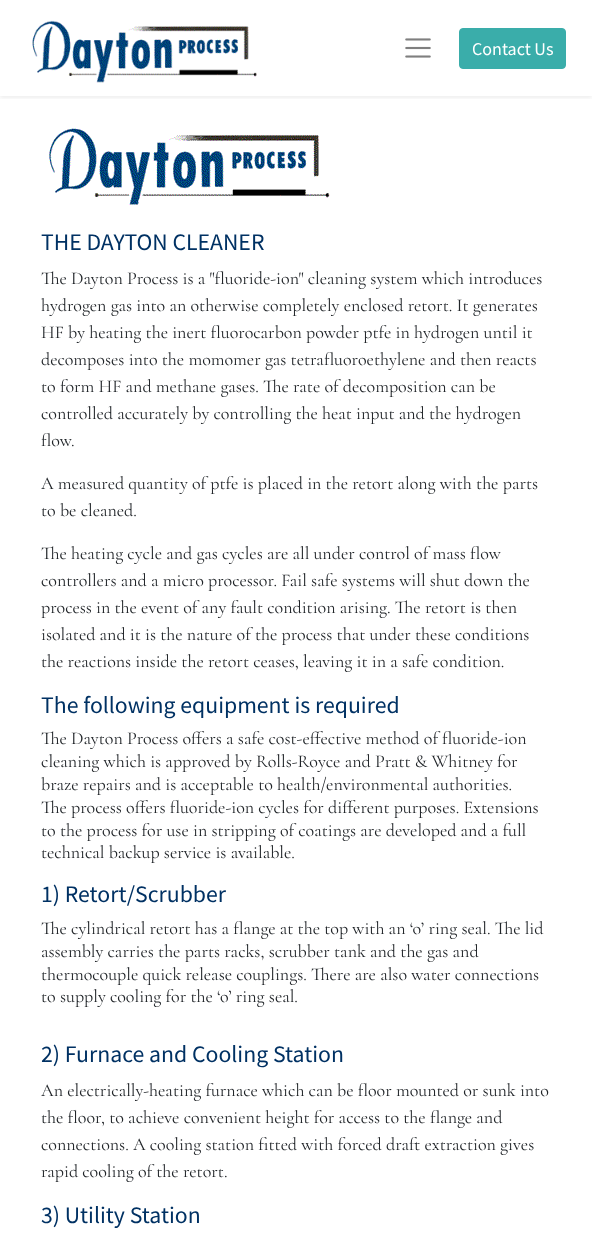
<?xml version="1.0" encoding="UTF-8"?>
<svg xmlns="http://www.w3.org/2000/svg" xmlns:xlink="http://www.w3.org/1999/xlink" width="592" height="1234">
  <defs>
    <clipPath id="clip1"><rect x="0" y="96" width="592" height="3" /></clipPath>
  </defs>
  <rect width="100%" height="100%" fill="#ffffff" />
  <g clip-path="url(#clip1)">
    <rect y="2" width="592" height="96" fill="#000000" fill-opacity="0.07" filter="blur(2px)" />
  </g>
  <image x="32" y="20" width="225" height="63" xlink:href="image1.png" />
  <image x="405" y="38" width="26" height="20" xlink:href="image2.png" />
  <rect x="459.5" y="28.5" width="106" height="40" rx="3.5" fill="#3aadaa" stroke="#3aadaa" />
  <image x="49" y="128" width="281" height="77" xlink:href="image3.png" />
  <text x="472" y="55" style="font-family: Source Sans Pro; font-size: 18px; fill: #ffffff">Contact Us</text>
  <text x="41" y="250" style="font-family: Source Sans Pro; font-size: 23.75px; fill: #003163">THE DAYTON CLEANER</text>
  <text x="41" y="284" style="font-family: Cormorant Garamond; font-size: 18px; fill: #212529">The Dayton Process is a "fluoride-ion" cleaning system which introduces</text>
  <text x="41" y="311" style="font-family: Cormorant Garamond; font-size: 18px; fill: #212529">hydrogen gas into an otherwise completely enclosed retort. It generates</text>
  <text x="41" y="338" style="font-family: Cormorant Garamond; font-size: 18px; fill: #212529">HF by heating the inert fluorocarbon powder ptfe in hydrogen until it</text>
  <text x="41" y="365" style="font-family: Cormorant Garamond; font-size: 18px; fill: #212529">decomposes into the momomer gas tetrafluoroethylene and then reacts</text>
  <text x="41" y="392" style="font-family: Cormorant Garamond; font-size: 18px; fill: #212529">to form HF and methane gases. The rate of decomposition can be</text>
  <text x="41" y="419" style="font-family: Cormorant Garamond; font-size: 18px; fill: #212529">controlled accurately by controlling the heat input and the hydrogen</text>
  <text x="41" y="446" style="font-family: Cormorant Garamond; font-size: 18px; fill: #212529">flow.</text>
  <text x="41" y="489" style="font-family: Cormorant Garamond; font-size: 18px; fill: #212529">A measured quantity of ptfe is placed in the retort along with the parts</text>
  <text x="41" y="516" style="font-family: Cormorant Garamond; font-size: 18px; fill: #212529">to be cleaned.</text>
  <text x="41" y="559" style="font-family: Cormorant Garamond; font-size: 18px; fill: #212529">The heating cycle and gas cycles are all under control of mass flow</text>
  <text x="41" y="586" style="font-family: Cormorant Garamond; font-size: 18px; fill: #212529">controllers and a micro processor. Fail safe systems will shut down the</text>
  <text x="41" y="613" style="font-family: Cormorant Garamond; font-size: 18px; fill: #212529">process in the event of any fault condition arising. The retort is then</text>
  <text x="41" y="640" style="font-family: Cormorant Garamond; font-size: 18px; fill: #212529">isolated and it is the nature of the process that under these conditions</text>
  <text x="41" y="667" style="font-family: Cormorant Garamond; font-size: 18px; fill: #212529">the reactions inside the retort ceases, leaving it in a safe condition.</text>
  <text x="41" y="713" style="font-family: Source Sans Pro; font-size: 23.75px; fill: #003163">The following equipment is required</text>
  <text x="41" y="744" style="font-family: Cormorant Garamond; font-size: 18px; fill: #212529">The Dayton Process offers a safe cost-effective method of fluoride-ion</text>
  <text x="41" y="767" style="font-family: Cormorant Garamond; font-size: 18px; fill: #212529">cleaning which is approved by Rolls-Royce and Pratt &amp; Whitney for</text>
  <text x="41" y="790" style="font-family: Cormorant Garamond; font-size: 18px; fill: #212529">braze repairs and is acceptable to health/environmental authorities.</text>
  <text x="41" y="813" style="font-family: Cormorant Garamond; font-size: 18px; fill: #212529">The process offers fluoride-ion cycles for different purposes. Extensions</text>
  <text x="41" y="836" style="font-family: Cormorant Garamond; font-size: 18px; fill: #212529">to the process for use in stripping of coatings are developed and a full</text>
  <text x="41" y="858" style="font-family: Cormorant Garamond; font-size: 18px; fill: #212529">technical backup service is available.</text>
  <text x="41" y="902" style="font-family: Source Sans Pro; font-size: 23.75px; fill: #003163">1) Retort/Scrubber</text>
  <text x="41" y="934" style="font-family: Cormorant Garamond; font-size: 18px; fill: #212529">The cylindrical retort has a flange at the top with an ‘o’ ring seal. The lid</text>
  <text x="41" y="957" style="font-family: Cormorant Garamond; font-size: 18px; fill: #212529">assembly carries the parts racks, scrubber tank and the gas and</text>
  <text x="41" y="980" style="font-family: Cormorant Garamond; font-size: 18px; fill: #212529">thermocouple quick release couplings. There are also water connections</text>
  <text x="41" y="1002" style="font-family: Cormorant Garamond; font-size: 18px; fill: #212529">to supply cooling for the ‘o’ ring seal.</text>
  <text x="41" y="1062" style="font-family: Source Sans Pro; font-size: 23.75px; fill: #003163">2) Furnace and Cooling Station</text>
  <text x="41" y="1096" style="font-family: Cormorant Garamond; font-size: 18px; fill: #212529">An electrically-heating furnace which can be floor mounted or sunk into</text>
  <text x="41" y="1123" style="font-family: Cormorant Garamond; font-size: 18px; fill: #212529">the floor, to achieve convenient height for access to the flange and</text>
  <text x="41" y="1150" style="font-family: Cormorant Garamond; font-size: 18px; fill: #212529">connections. A cooling station fitted with forced draft extraction gives</text>
  <text x="41" y="1177" style="font-family: Cormorant Garamond; font-size: 18px; fill: #212529">rapid cooling of the retort.</text>
  <text x="41" y="1223" style="font-family: Source Sans Pro; font-size: 23.75px; fill: #003163">3) Utility Station</text>
</svg>
